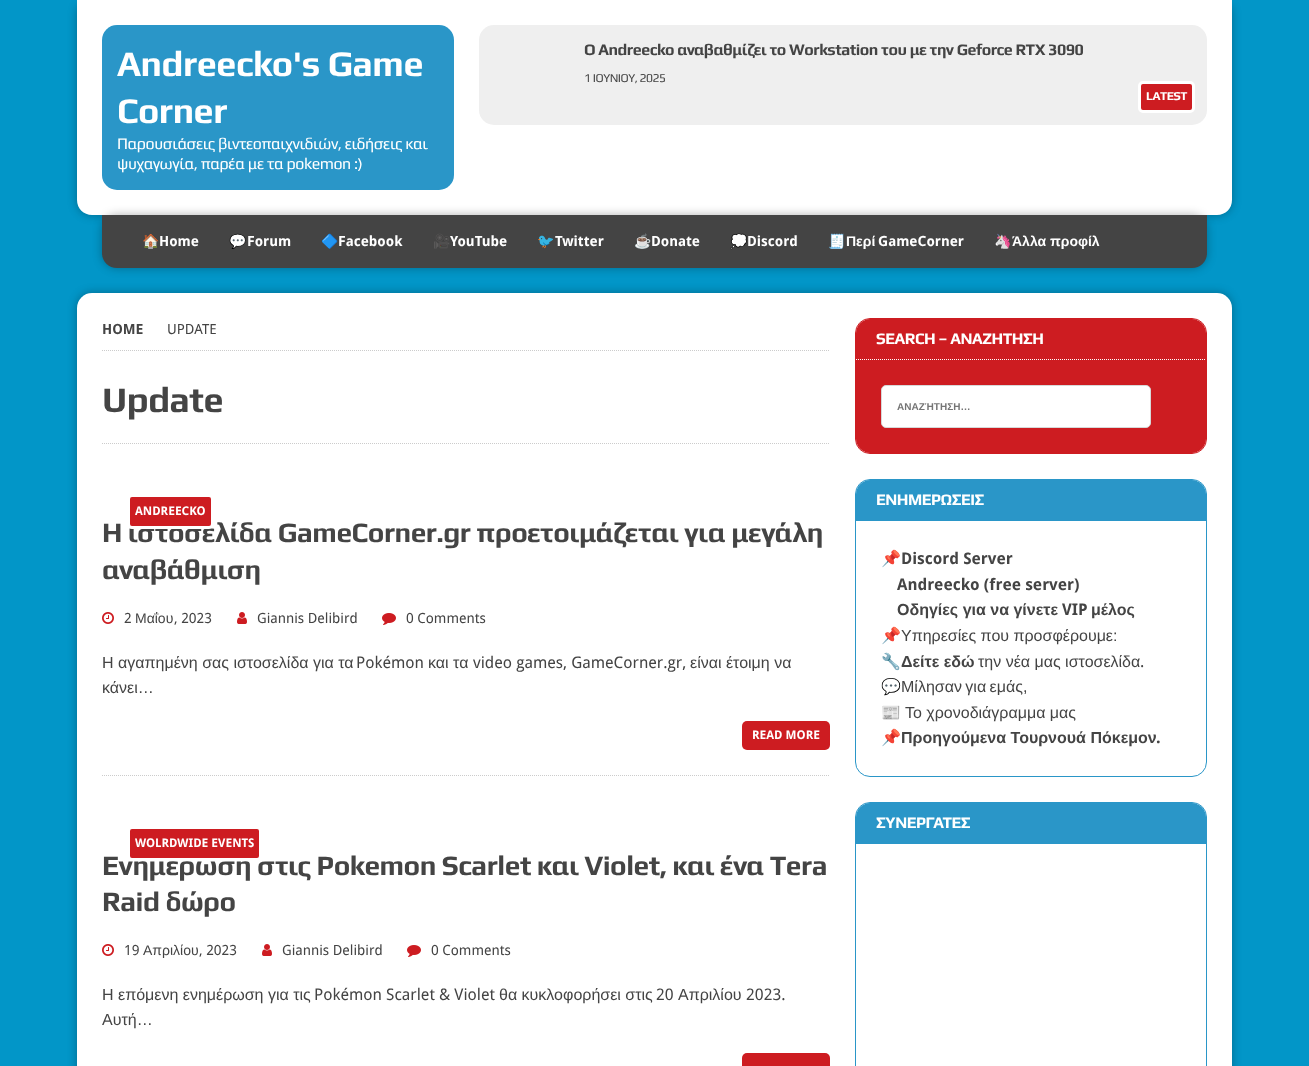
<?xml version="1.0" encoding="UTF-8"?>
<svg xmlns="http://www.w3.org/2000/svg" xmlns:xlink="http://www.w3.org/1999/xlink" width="1309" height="1066">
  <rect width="100%" height="100%" fill="#0296c8" />
  <rect x="77" width="1155" height="215" rx="15" fill="#000000" fill-opacity="0.3" filter="blur(5px)" />
  <path d="M 77 0 h 1155 v 200 c 0 8.5 -6.5 15 -15 15 h -1125 c -8.5 0 -15 -6.5 -15 -15 z" fill="#ffffff" />
  <rect x="102" y="25" width="352" height="165" rx="15" fill="#2a96c8" />
  <rect x="479" y="25" width="728" height="100" rx="15" fill="#efefef" />
  <rect x="1139.5" y="82.5" width="54" height="29" rx="3.5" fill="#cd1c21" stroke="#ffffff" stroke-width="3" />
  <rect x="102" y="215" width="1105" height="53" rx="15" fill="#000000" fill-opacity="0.3" filter="blur(5px)" />
  <path d="M 102 215 h 1105 v 38 c 0 8.5 -6.5 15 -15 15 h -1075 c -8.5 0 -15 -6.5 -15 -15 z" fill="#444444" />
  <rect x="77" y="293" width="1155" height="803" rx="15" fill="#000000" fill-opacity="0.3" filter="blur(5px)" />
  <rect x="77" y="293" width="1155" height="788" rx="15" fill="#ffffff" />
  <path d="M 102 350.5 h 728" fill="none" stroke="#cccccc" stroke-dasharray="1 1" />
  <path d="M 102 443.5 h 728" fill="none" stroke="#cccccc" stroke-dasharray="1 1" />
  <path d="M 102 775.5 h 728" fill="none" stroke="#cccccc" stroke-dasharray="1 1" />
  <image x="102" y="612" width="12" height="12" xlink:href="image1.png" />
  <image x="237" y="612" width="10" height="12" xlink:href="image2.png" />
  <image x="382" y="613" width="14" height="12" xlink:href="image3.png" />
  <rect x="742" y="721" width="88" height="29" rx="5" fill="#cd1c21" />
  <image x="102" y="944" width="12" height="12" xlink:href="image1.png" />
  <image x="262" y="944" width="10" height="12" xlink:href="image2.png" />
  <image x="407" y="945" width="14" height="12" xlink:href="image3.png" />
  <rect x="742" y="1053" width="88" height="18" rx="5" fill="#cd1c21" />
  <rect x="855.5" y="318.5" width="351" height="135" rx="14.5" fill="none" stroke="#cd1c21" />
  <path d="M 870 319 h 322 c 7.5 0 14 6.5 14 14 v 27 h -350 v -27 c 0 -7.5 6.5 -14 14 -14 z" fill="#cd1c21" />
  <path d="M 856 359.5 h 350" fill="none" stroke="#ffffff" stroke-dasharray="1 1" />
  <path d="M 856 360 h 350 v 79 c 0 7.5 -6.5 14 -14 14 h -322 c -7.5 0 -14 -6.5 -14 -14 z" fill="#cd1c21" />
  <rect x="881.5" y="385.5" width="269" height="42" rx="4.5" fill="#ffffff" stroke="#d7d8d8" />
  <rect x="855.5" y="479.5" width="351" height="297" rx="14.5" fill="none" stroke="#2a96c8" />
  <path d="M 870 480 h 322 c 7.5 0 14 6.5 14 14 v 27 h -350 v -27 c 0 -7.5 6.5 -14 14 -14 z" fill="#2a96c8" />
  <rect x="855.5" y="802.5" width="351" height="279" rx="14.5" fill="none" stroke="#2a96c8" />
  <path d="M 870 803 h 322 c 7.5 0 14 6.5 14 14 v 27 h -350 v -27 c 0 -7.5 6.5 -14 14 -14 z" fill="#2a96c8" />
  <text x="117" y="76" style="font-family: Play; font-size: 36px; font-weight: bold; letter-spacing: -0.48px; fill: #ffffff">Andreecko's Game</text>
  <text x="117" y="123" style="font-family: Play; font-size: 36px; font-weight: bold; letter-spacing: -0.48px; fill: #ffffff">Corner</text>
  <text x="117" y="149" style="font-family: Play; font-size: 16px; letter-spacing: -0.48px; fill: #ffffff">Παρουσιάσεις βιντεοπαιχνιδιών, ειδήσεις και</text>
  <text x="117" y="169" style="font-family: Play; font-size: 16px; letter-spacing: -0.48px; fill: #ffffff">ψυχαγωγία, παρέα με τα pokemon :)</text>
  <text x="584" y="55" style="font-family: Play; font-size: 16px; font-weight: bold; letter-spacing: -0.48px; fill: #444444">Ο Andreecko αναβαθμίζει το Workstation του με την Geforce RTX 3090</text>
  <text x="584" y="82" style="font-family: Play; font-size: 12px; letter-spacing: -0.48px; fill: #444444">1 ΙΟΥΝΙΟΥ, 2025</text>
  <text x="1146" y="100" style="font-family: Play; font-size: 12px; font-weight: bold; letter-spacing: -0.48px; fill: #ffffff">LATEST</text>
  <text x="142" y="246" style="font-family: Noto Color Emoji; font-size: 14px; font-weight: bold; fill: #ffffff">🏠</text>
  <text x="159" y="246" style="font-family: Droid Sans; font-size: 14px; font-weight: bold; fill: #ffffff">Home</text>
  <text x="229" y="246" style="font-family: Noto Color Emoji; font-size: 14px; font-weight: bold; fill: #ffffff">💬</text>
  <text x="247" y="246" style="font-family: Droid Sans; font-size: 14px; font-weight: bold; fill: #ffffff">Forum</text>
  <text x="321" y="246" style="font-family: Noto Color Emoji; font-size: 14px; font-weight: bold; fill: #ffffff">🔷</text>
  <text x="338" y="246" style="font-family: Droid Sans; font-size: 14px; font-weight: bold; fill: #ffffff">Facebook</text>
  <text x="433" y="246" style="font-family: Noto Color Emoji; font-size: 14px; font-weight: bold; fill: #ffffff">🎥</text>
  <text x="450" y="246" style="font-family: Droid Sans; font-size: 14px; font-weight: bold; fill: #ffffff">YouTube</text>
  <text x="537" y="246" style="font-family: Noto Color Emoji; font-size: 14px; font-weight: bold; fill: #ffffff">🐦</text>
  <text x="555" y="246" style="font-family: Droid Sans; font-size: 14px; font-weight: bold; fill: #ffffff">Twitter</text>
  <text x="634" y="246" style="font-family: Noto Color Emoji; font-size: 14px; font-weight: bold; fill: #ffffff">☕️</text>
  <text x="651" y="246" style="font-family: Droid Sans; font-size: 14px; font-weight: bold; fill: #ffffff">Donate</text>
  <text x="730" y="246" style="font-family: Noto Color Emoji; font-size: 14px; font-weight: bold; fill: #ffffff">💭</text>
  <text x="747" y="246" style="font-family: Droid Sans; font-size: 14px; font-weight: bold; fill: #ffffff">Discord</text>
  <text x="828" y="246" style="font-family: Noto Color Emoji; font-size: 14px; font-weight: bold; fill: #ffffff">🧾</text>
  <text x="846" y="246" style="font-family: Liberation Sans; font-size: 14px; font-weight: bold; fill: #ffffff">Περί</text>
  <text x="878" y="246" style="font-family: Droid Sans; font-size: 14px; font-weight: bold; fill: #ffffff">GameCorner</text>
  <text x="994" y="246" style="font-family: Noto Color Emoji; font-size: 14px; font-weight: bold; fill: #ffffff">🦄</text>
  <text x="1012" y="246" style="font-family: Liberation Sans; font-size: 14px; font-weight: bold; fill: #ffffff">Άλλα προφίλ</text>
  <text x="102" y="334" style="font-family: Droid Sans; font-size: 14px; font-weight: bold; fill: #444444">HOME</text>
  <text x="167" y="334" style="font-family: Droid Sans; font-size: 14px; fill: #444444">UPDATE</text>
  <text x="102" y="412" style="font-family: Play; font-size: 36px; font-weight: bold; letter-spacing: -0.48px; fill: #444444">Update</text>
  <text x="102" y="542" style="font-family: Play; font-size: 28px; font-weight: bold; letter-spacing: -0.48px; fill: #444444">Η ιστοσελίδα GameCorner.gr προετοιμάζεται για μεγάλη</text>
  <rect x="128.5" y="495.5" width="84" height="32" rx="3.5" fill="#cd1c21" stroke="#ffffff" stroke-width="3" />
  <text x="135" y="515" style="font-family: Droid Sans; font-size: 12px; font-weight: bold; fill: #ffffff">ANDREECKO</text>
  <text x="102" y="579" style="font-family: Play; font-size: 28px; font-weight: bold; letter-spacing: -0.48px; fill: #444444">αναβάθμιση</text>
  <text x="124" y="623" style="font-family: Droid Sans; font-size: 14px; fill: #444444">2</text>
  <text x="135" y="623" style="font-family: Liberation Sans; font-size: 14px; fill: #444444">Μαΐου</text>
  <text x="174" y="623" style="font-family: Droid Sans; font-size: 14px; fill: #444444">, 2023</text>
  <text x="257" y="623" style="font-family: Droid Sans; font-size: 14px; fill: #444444">Giannis Delibird</text>
  <text x="406" y="623" style="font-family: Droid Sans; font-size: 14px; fill: #444444">0 Comments</text>
  <text x="102" y="668" style="font-family: Liberation Sans; font-size: 16px; fill: #444444">Η αγαπημένη σας ιστοσελίδα για τα</text>
  <text x="356" y="668" style="font-family: Droid Sans; font-size: 16px; fill: #444444">Pokémon</text>
  <text x="428" y="668" style="font-family: Liberation Sans; font-size: 16px; fill: #444444">και τα</text>
  <text x="473" y="668" style="font-family: Droid Sans; font-size: 16px; fill: #444444">video games, GameCorner.gr,</text>
  <text x="690" y="668" style="font-family: Liberation Sans; font-size: 16px; fill: #444444">είναι έτοιμη να</text>
  <text x="102" y="693" style="font-family: Liberation Sans; font-size: 16px; fill: #444444">κάνει…</text>
  <text x="752" y="739" style="font-family: Droid Sans; font-size: 12px; font-weight: bold; fill: #ffffff">READ MORE</text>
  <text x="102" y="875" style="font-family: Play; font-size: 28px; font-weight: bold; letter-spacing: -0.48px; fill: #444444">Ενημέρωση στις Pokemon Scarlet και Violet, και ένα Tera</text>
  <rect x="128.5" y="827.5" width="132" height="32" rx="3.5" fill="#cd1c21" stroke="#ffffff" stroke-width="3" />
  <text x="135" y="847" style="font-family: Droid Sans; font-size: 12px; font-weight: bold; fill: #ffffff">WOLRDWIDE EVENTS</text>
  <text x="102" y="911" style="font-family: Play; font-size: 28px; font-weight: bold; letter-spacing: -0.48px; fill: #444444">Raid δώρο</text>
  <text x="124" y="955" style="font-family: Droid Sans; font-size: 14px; fill: #444444">19</text>
  <text x="143" y="955" style="font-family: Liberation Sans; font-size: 14px; fill: #444444">Απριλίου</text>
  <text x="199" y="955" style="font-family: Droid Sans; font-size: 14px; fill: #444444">, 2023</text>
  <text x="282" y="955" style="font-family: Droid Sans; font-size: 14px; fill: #444444">Giannis Delibird</text>
  <text x="431" y="955" style="font-family: Droid Sans; font-size: 14px; fill: #444444">0 Comments</text>
  <text x="102" y="1000" style="font-family: Liberation Sans; font-size: 16px; fill: #444444">Η επόμενη ενημέρωση για τις</text>
  <text x="314" y="1000" style="font-family: Droid Sans; font-size: 16px; fill: #444444">Pokémon Scarlet &amp; Violet</text>
  <text x="499" y="1000" style="font-family: Liberation Sans; font-size: 16px; fill: #444444">θα κυκλοφορήσει στις</text>
  <text x="656" y="1000" style="font-family: Droid Sans; font-size: 16px; fill: #444444">20</text>
  <text x="678" y="1000" style="font-family: Liberation Sans; font-size: 16px; fill: #444444">Απριλίου</text>
  <text x="746" y="1000" style="font-family: Droid Sans; font-size: 16px; fill: #444444">2023.</text>
  <text x="102" y="1025" style="font-family: Liberation Sans; font-size: 16px; fill: #444444">Αυτή…</text>
  <text x="876" y="344" style="font-family: Play; font-size: 16px; font-weight: bold; letter-spacing: -0.48px; fill: #ffffff">SEARCH – ΑΝΑΖΗΤΗΣΗ</text>
  <text x="897" y="410" style="font-family: Liberation Sans; font-size: 10px; font-weight: bold; fill: #757575">ΑΝΑΖΉΤΗΣΗ…</text>
  <text x="876" y="505" style="font-family: Play; font-size: 16px; font-weight: bold; letter-spacing: -0.48px; fill: #ffffff">ΕΝΗΜΕΡΩΣΕΙΣ</text>
  <text x="881" y="564" style="font-family: Noto Color Emoji; font-size: 16px; font-weight: bold; fill: #444444">📌</text>
  <text x="901" y="564" style="font-family: Droid Sans; font-size: 16px; font-weight: bold; fill: #444444">Discord Server</text>
  <text x="897" y="590" style="font-family: Droid Sans; font-size: 16px; font-weight: bold; fill: #444444">Andreecko (free server)</text>
  <text x="897" y="615" style="font-family: Liberation Sans; font-size: 16px; font-weight: bold; fill: #444444">Οδηγίες για να γίνετε</text>
  <text x="1062" y="615" style="font-family: Droid Sans; font-size: 16px; font-weight: bold; fill: #444444">VIP</text>
  <text x="1091" y="615" style="font-family: Liberation Sans; font-size: 16px; font-weight: bold; fill: #444444">μέλος</text>
  <text x="881" y="641" style="font-family: Noto Color Emoji; font-size: 16px; fill: #444444">📌</text>
  <text x="901" y="641" style="font-family: Liberation Sans; font-size: 16px; fill: #444444">Υπηρεσίες που προσφέρουμε:</text>
  <text x="881" y="667" style="font-family: Noto Color Emoji; font-size: 16px; font-weight: bold; fill: #444444">🔧</text>
  <text x="901" y="667" style="font-family: Liberation Sans; font-size: 16px; font-weight: bold; fill: #444444">Δείτε εδώ</text>
  <text x="978" y="667" style="font-family: Liberation Sans; font-size: 16px; fill: #444444">την νέα μας ιστοσελίδα</text>
  <text x="1140" y="667" style="font-family: Droid Sans; font-size: 16px; fill: #444444">.</text>
  <text x="881" y="692" style="font-family: Noto Color Emoji; font-size: 16px; fill: #444444">💬</text>
  <text x="901" y="692" word-spacing="-1" style="font-family: Liberation Sans; font-size: 16px; fill: #444444">Μίλησαν για εμάς,</text>
  <text x="881" y="718" style="font-family: Noto Color Emoji; font-size: 16px; fill: #444444">📰</text>
  <text x="905" y="718" style="font-family: Liberation Sans; font-size: 16px; fill: #444444">Το χρονοδιάγραμμα μας</text>
  <text x="881" y="743" style="font-family: Noto Color Emoji; font-size: 16px; font-weight: bold; fill: #444444">📌</text>
  <text x="901" y="743" style="font-family: Liberation Sans; font-size: 16px; font-weight: bold; fill: #444444">Προηγούμενα Τουρνουά Πόκεμον</text>
  <text x="1156" y="743" style="font-family: Droid Sans; font-size: 16px; font-weight: bold; fill: #444444">.</text>
  <text x="876" y="828" style="font-family: Play; font-size: 16px; font-weight: bold; letter-spacing: -0.48px; fill: #ffffff">ΣΥΝΕΡΓΑΤΕΣ</text>
</svg>
